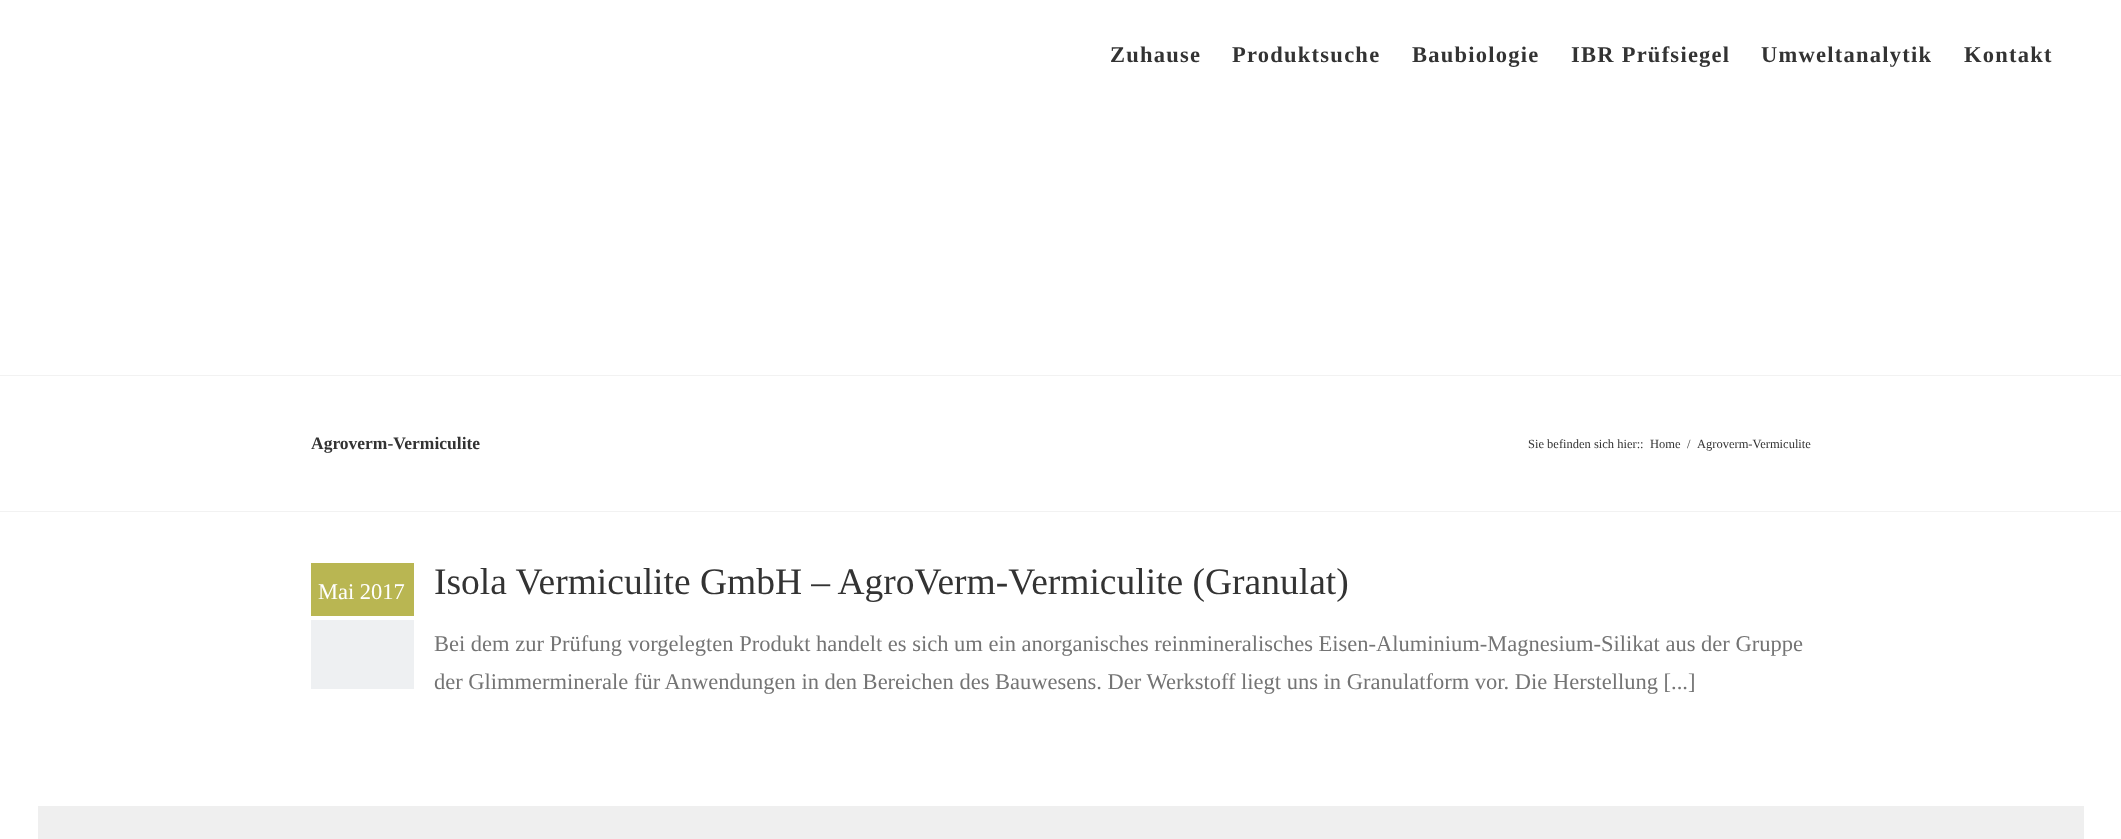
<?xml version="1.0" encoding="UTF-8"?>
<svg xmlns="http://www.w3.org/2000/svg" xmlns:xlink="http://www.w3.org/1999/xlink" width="2121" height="839">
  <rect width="100%" height="100%" fill="#ffffff" />
  <rect y="375" width="2121" height="1" fill="#f2f2f2" />
  <rect y="511" width="2121" height="1" fill="#f2f2f2" />
  <rect x="311" y="563" width="103" height="53" fill="#b9b652" />
  <rect x="311" y="620" width="103" height="69" fill="#eef0f2" />
  <rect x="38" y="806" width="2046" height="33" fill="#efefef" />
  <text x="1110" y="62" style="font-family: Liberation Serif; font-size: 22.5px; font-weight: bold; letter-spacing: 1.25px; fill: #333333">Zuhause</text>
  <text x="1232" y="62" style="font-family: Liberation Serif; font-size: 22.5px; font-weight: bold; letter-spacing: 1.25px; fill: #333333">Produktsuche</text>
  <text x="1412" y="62" style="font-family: Liberation Serif; font-size: 22.5px; font-weight: bold; letter-spacing: 1.25px; fill: #333333">Baubiologie</text>
  <text x="1571" y="62" style="font-family: Liberation Serif; font-size: 22.5px; font-weight: bold; letter-spacing: 1.25px; fill: #333333">IBR Prüfsiegel</text>
  <text x="1761" y="62" style="font-family: Liberation Serif; font-size: 22.5px; font-weight: bold; letter-spacing: 1.25px; fill: #333333">Umweltanalytik</text>
  <text x="1964" y="62" style="font-family: Liberation Serif; font-size: 22.5px; font-weight: bold; letter-spacing: 1.25px; fill: #333333">Kontakt</text>
  <text x="311" y="449" style="font-family: Liberation Serif; font-size: 17.5px; font-weight: bold; fill: #333333">Agroverm-Vermiculite</text>
  <text x="1528" y="448" style="font-family: Liberation Serif; font-size: 12.5px; fill: #333333">Sie befinden sich hier::</text>
  <text x="1650" y="448" style="font-family: Liberation Serif; font-size: 12.5px; fill: #333333">Home</text>
  <text x="1687" y="448" style="font-family: Liberation Serif; font-size: 12.5px; fill: #333333">/</text>
  <text x="1697" y="448" style="font-family: Liberation Serif; font-size: 12.5px; fill: #333333">Agroverm-Vermiculite</text>
  <text x="318" y="599" style="font-family: Liberation Serif; font-size: 22.5px; fill: #ffffff">Mai 2017</text>
  <text x="434" y="594" style="font-family: Liberation Serif; font-size: 37.5px; fill: #333333">Isola Vermiculite GmbH – AgroVerm-Vermiculite (Granulat)</text>
  <text x="434" y="651" style="font-family: Liberation Serif; font-size: 22.5px; fill: #747474">Bei dem zur Prüfung vorgelegten Produkt handelt es sich um ein anorganisches reinmineralisches Eisen-Aluminium-Magnesium-Silikat aus der Gruppe</text>
  <text x="434" y="689" style="font-family: Liberation Serif; font-size: 22.5px; fill: #747474">der Glimmerminerale für Anwendungen in den Bereichen des Bauwesens. Der Werkstoff liegt uns in Granulatform vor. Die Herstellung [...]</text>
</svg>
